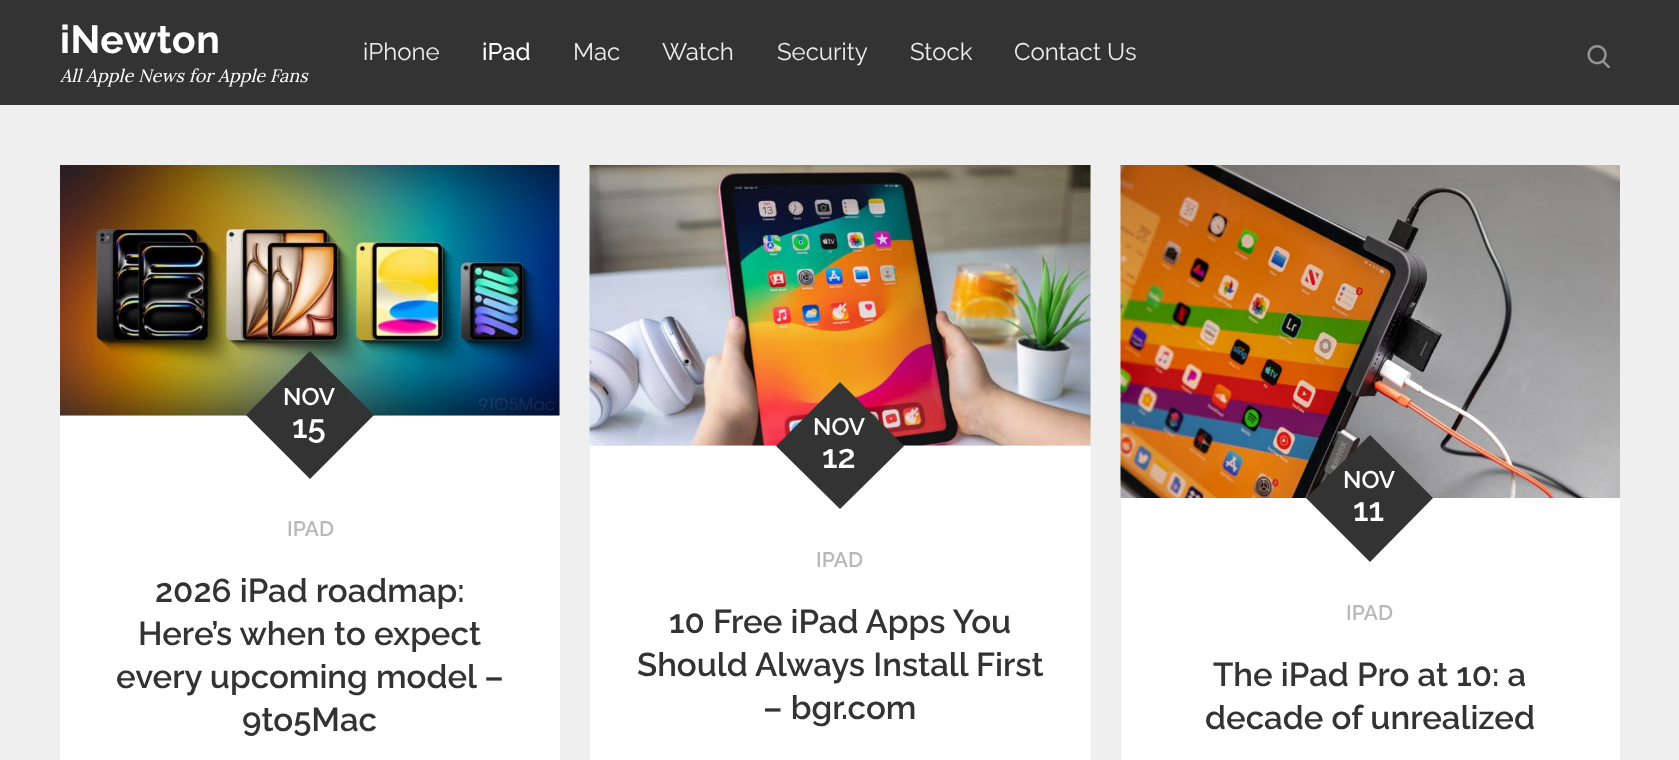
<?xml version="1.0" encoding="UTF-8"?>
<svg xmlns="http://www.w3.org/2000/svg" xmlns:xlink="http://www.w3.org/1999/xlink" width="1679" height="760">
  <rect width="100%" height="100%" fill="#efefef" />
  <rect width="1679" height="105" fill="#333333" />
  <image x="1587" y="45" width="23" height="23" xlink:href="image1.png" />
  <image x="60" y="165" width="500" height="251" xlink:href="image2.png" />
  <rect x="60" y="416" width="500" height="344" fill="#ffffff" />
  <path d="M 246 415 l 64 -64 l 64 64 l -64 64 z" fill="#333333" />
  <image x="589" y="165" width="502" height="281" xlink:href="image3.png" />
  <rect x="590" y="446" width="501" height="314" fill="#ffffff" />
  <path d="M 776 446 l 64 -64 l 64 64 l -64 63 z" fill="#333333" />
  <image x="1120" y="165" width="500" height="333" xlink:href="image4.png" />
  <rect x="1121" y="498" width="499" height="262" fill="#ffffff" />
  <path d="M 1306 498 l 64 -63 l 63 63 l -63 64 z" fill="#333333" />
  <text x="60" y="53" style="font-family: Raleway; font-size: 39px; font-weight: bold; letter-spacing: 0.5px; fill: #ffffff">iNewton</text>
  <text x="60" y="82" style="font-family: Lora; font-size: 18px; font-style: italic; fill: #ffffff">All Apple News for Apple Fans</text>
  <text x="363" y="60" style="font-family: Raleway; font-size: 24px; fill: #eeeeee">iPhone</text>
  <text x="482" y="60" style="font-family: Raleway; font-size: 24px; font-weight: 500; fill: #ffffff">iPad</text>
  <text x="573" y="60" style="font-family: Raleway; font-size: 24px; fill: #eeeeee">Mac</text>
  <text x="662" y="60" style="font-family: Raleway; font-size: 24px; fill: #eeeeee">Watch</text>
  <text x="777" y="60" style="font-family: Raleway; font-size: 24px; fill: #eeeeee">Security</text>
  <text x="910" y="60" style="font-family: Raleway; font-size: 24px; fill: #eeeeee">Stock</text>
  <text x="1014" y="60" style="font-family: Raleway; font-size: 24px; fill: #eeeeee">Contact Us</text>
  <text x="283" y="405" style="font-family: Raleway; font-size: 24px; font-weight: 600; fill: #ffffff">NOV</text>
  <text x="292" y="438" style="font-family: Raleway; font-size: 33px; font-weight: 600; fill: #ffffff">15</text>
  <text x="287" y="536" style="font-family: Raleway; font-size: 21px; font-weight: 600; fill: #b8b8b8">IPAD</text>
  <text x="155" y="602" style="font-family: Raleway; font-size: 33px; font-weight: 600; fill: #333333">2026 iPad roadmap:</text>
  <text x="138" y="645" style="font-family: Raleway; font-size: 33px; font-weight: 600; fill: #333333">Here’s when to expect</text>
  <text x="116" y="688" style="font-family: Raleway; font-size: 33px; font-weight: 600; fill: #333333">every upcoming model –</text>
  <text x="242" y="731" style="font-family: Raleway; font-size: 33px; font-weight: 600; fill: #333333">9to5Mac</text>
  <text x="813" y="435" style="font-family: Raleway; font-size: 24px; font-weight: 600; fill: #ffffff">NOV</text>
  <text x="822" y="468" style="font-family: Raleway; font-size: 33px; font-weight: 600; fill: #ffffff">12</text>
  <text x="816" y="567" style="font-family: Raleway; font-size: 21px; font-weight: 600; fill: #b8b8b8">IPAD</text>
  <text x="669" y="633" style="font-family: Raleway; font-size: 33px; font-weight: 600; fill: #333333">10 Free iPad Apps You</text>
  <text x="637" y="676" style="font-family: Raleway; font-size: 33px; font-weight: 600; fill: #333333">Should Always Install First</text>
  <text x="763" y="719" style="font-family: Raleway; font-size: 33px; font-weight: 600; fill: #333333">– bgr.com</text>
  <text x="1343" y="488" style="font-family: Raleway; font-size: 24px; font-weight: 600; fill: #ffffff">NOV</text>
  <text x="1353" y="521" style="font-family: Raleway; font-size: 33px; font-weight: 600; fill: #ffffff">11</text>
  <text x="1346" y="620" style="font-family: Raleway; font-size: 21px; font-weight: 600; fill: #b8b8b8">IPAD</text>
  <text x="1213" y="686" style="font-family: Raleway; font-size: 33px; font-weight: 600; fill: #333333">The iPad Pro at 10: a</text>
  <text x="1205" y="729" style="font-family: Raleway; font-size: 33px; font-weight: 600; fill: #333333">decade of unrealized</text>
</svg>
